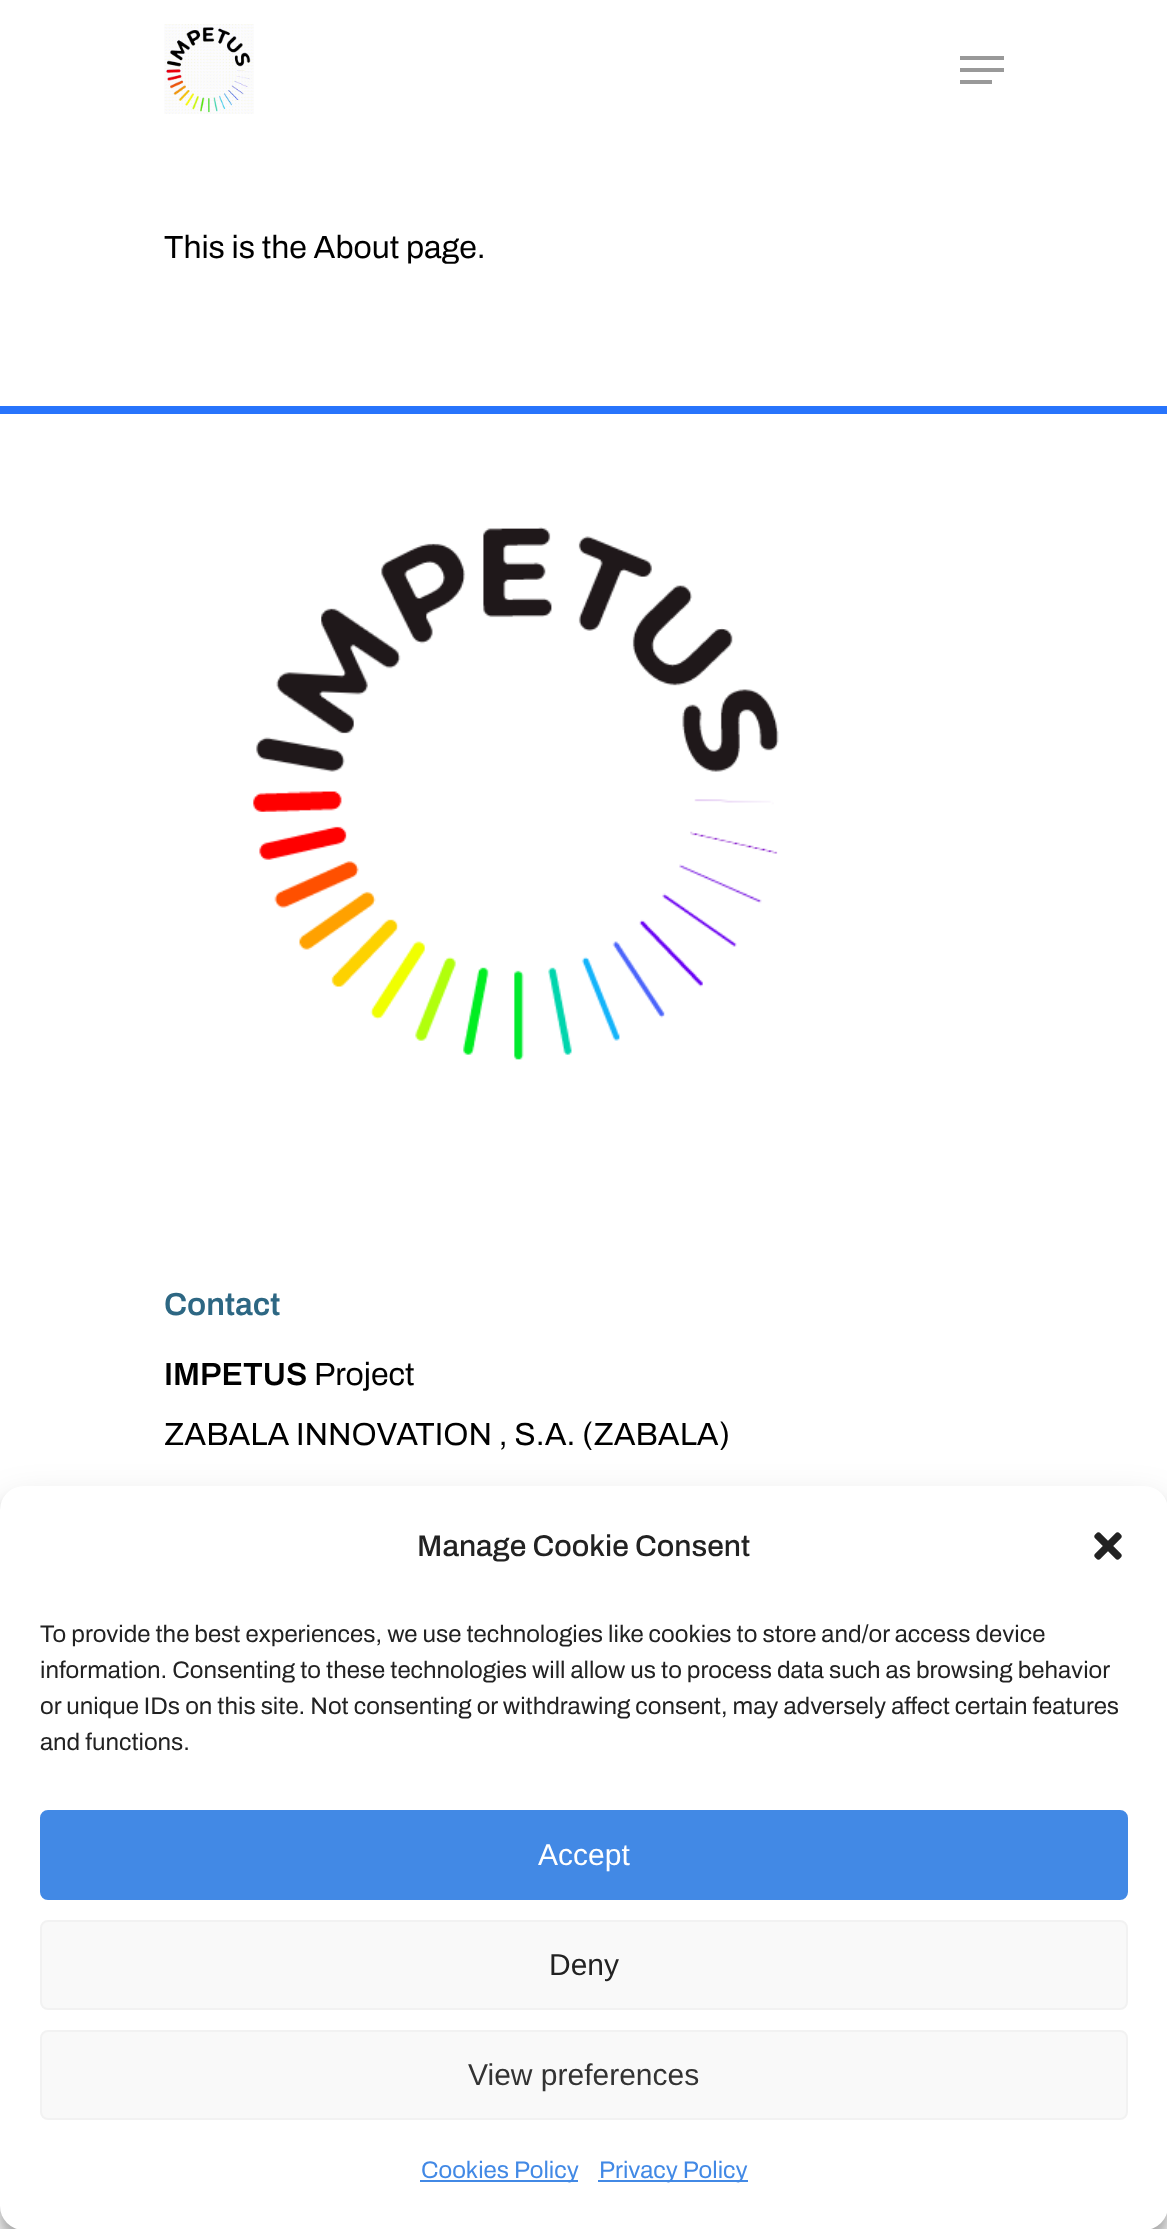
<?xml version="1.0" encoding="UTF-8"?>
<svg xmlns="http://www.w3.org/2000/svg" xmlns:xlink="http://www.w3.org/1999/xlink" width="1167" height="2229">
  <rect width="100%" height="100%" fill="#ffffff" />
  <image x="164" y="24" width="90" height="90" xlink:href="image1.png" />
  <rect x="960" y="56" width="44" height="4" fill="#999999" />
  <rect x="960" y="80" width="32" height="4" fill="#999999" />
  <rect x="960" y="68" width="44" height="4" fill="#999999" />
  <rect y="406" width="1167" height="8" fill="#2874fc" />
  <image x="253" y="527" width="526" height="533" xlink:href="image2.png" />
  <rect y="1498" width="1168" height="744" rx="24" fill="#000000" fill-opacity="0.23" filter="blur(6px)" />
  <rect y="1506" width="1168" height="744" rx="24" fill="#000000" fill-opacity="0.19" filter="blur(20px)" />
  <rect y="1486" width="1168" height="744" rx="24" fill="#ffffff" />
  <image x="1094" y="1532" width="28" height="28" xlink:href="image3.png" />
  <rect x="41" y="1811" width="1086" height="88" rx="7" fill="#4289e5" stroke="#4289e5" stroke-width="2" />
  <rect x="41" y="1921" width="1086" height="88" rx="7" fill="#f9f9f9" stroke="#f2f2f2" stroke-width="2" />
  <rect x="41" y="2031" width="1086" height="88" rx="7" fill="#f9f9f9" stroke="#f2f2f2" stroke-width="2" />
  <rect x="420" y="2180" width="158" height="2" fill="#4289e5" />
  <rect x="598" y="2180" width="150" height="2" fill="#4289e5" />
  <text x="164" y="258" style="font-family: Archivo; font-size: 32px; fill: #000000">This is the About page.</text>
  <text x="164" y="1315" style="font-family: Archivo; font-size: 32px; font-weight: 600; fill: #2d6783">Contact</text>
  <text x="164" y="1385" style="font-family: Archivo; font-size: 32px; font-weight: 600; fill: #000000">IMPETUS</text>
  <text x="314" y="1385" style="font-family: Archivo; font-size: 32px; fill: #000000">Project</text>
  <text x="164" y="1445" style="font-family: Archivo; font-size: 32px; fill: #000000">ZABALA INNOVATION , S.A. (ZABALA)</text>
  <text x="417" y="1556" style="font-family: Archivo; font-size: 30px; font-weight: 500; fill: #222222">Manage Cookie Consent</text>
  <text x="40" y="1642" style="font-family: Archivo; font-size: 24px; fill: #222222">To provide the best experiences, we use technologies like cookies to store and/or access device</text>
  <text x="40" y="1678" style="font-family: Archivo; font-size: 24px; fill: #222222">information. Consenting to these technologies will allow us to process data such as browsing behavior</text>
  <text x="40" y="1714" style="font-family: Archivo; font-size: 24px; fill: #222222">or unique IDs on this site. Not consenting or withdrawing consent, may adversely affect certain features</text>
  <text x="40" y="1750" style="font-family: Archivo; font-size: 24px; fill: #222222">and functions.</text>
  <text x="538" y="1865" style="font-family: Liberation Sans; font-size: 30px; fill: #ffffff">Accept</text>
  <text x="549" y="1975" style="font-family: Liberation Sans; font-size: 30px; fill: #222222">Deny</text>
  <text x="468" y="2085" style="font-family: Liberation Sans; font-size: 30px; fill: #333333">View preferences</text>
  <text x="421" y="2178" style="font-family: Archivo; font-size: 24px; fill: #4289e5">Cookies Policy</text>
  <text x="599" y="2178" style="font-family: Archivo; font-size: 24px; fill: #4289e5">Privacy Policy</text>
</svg>
